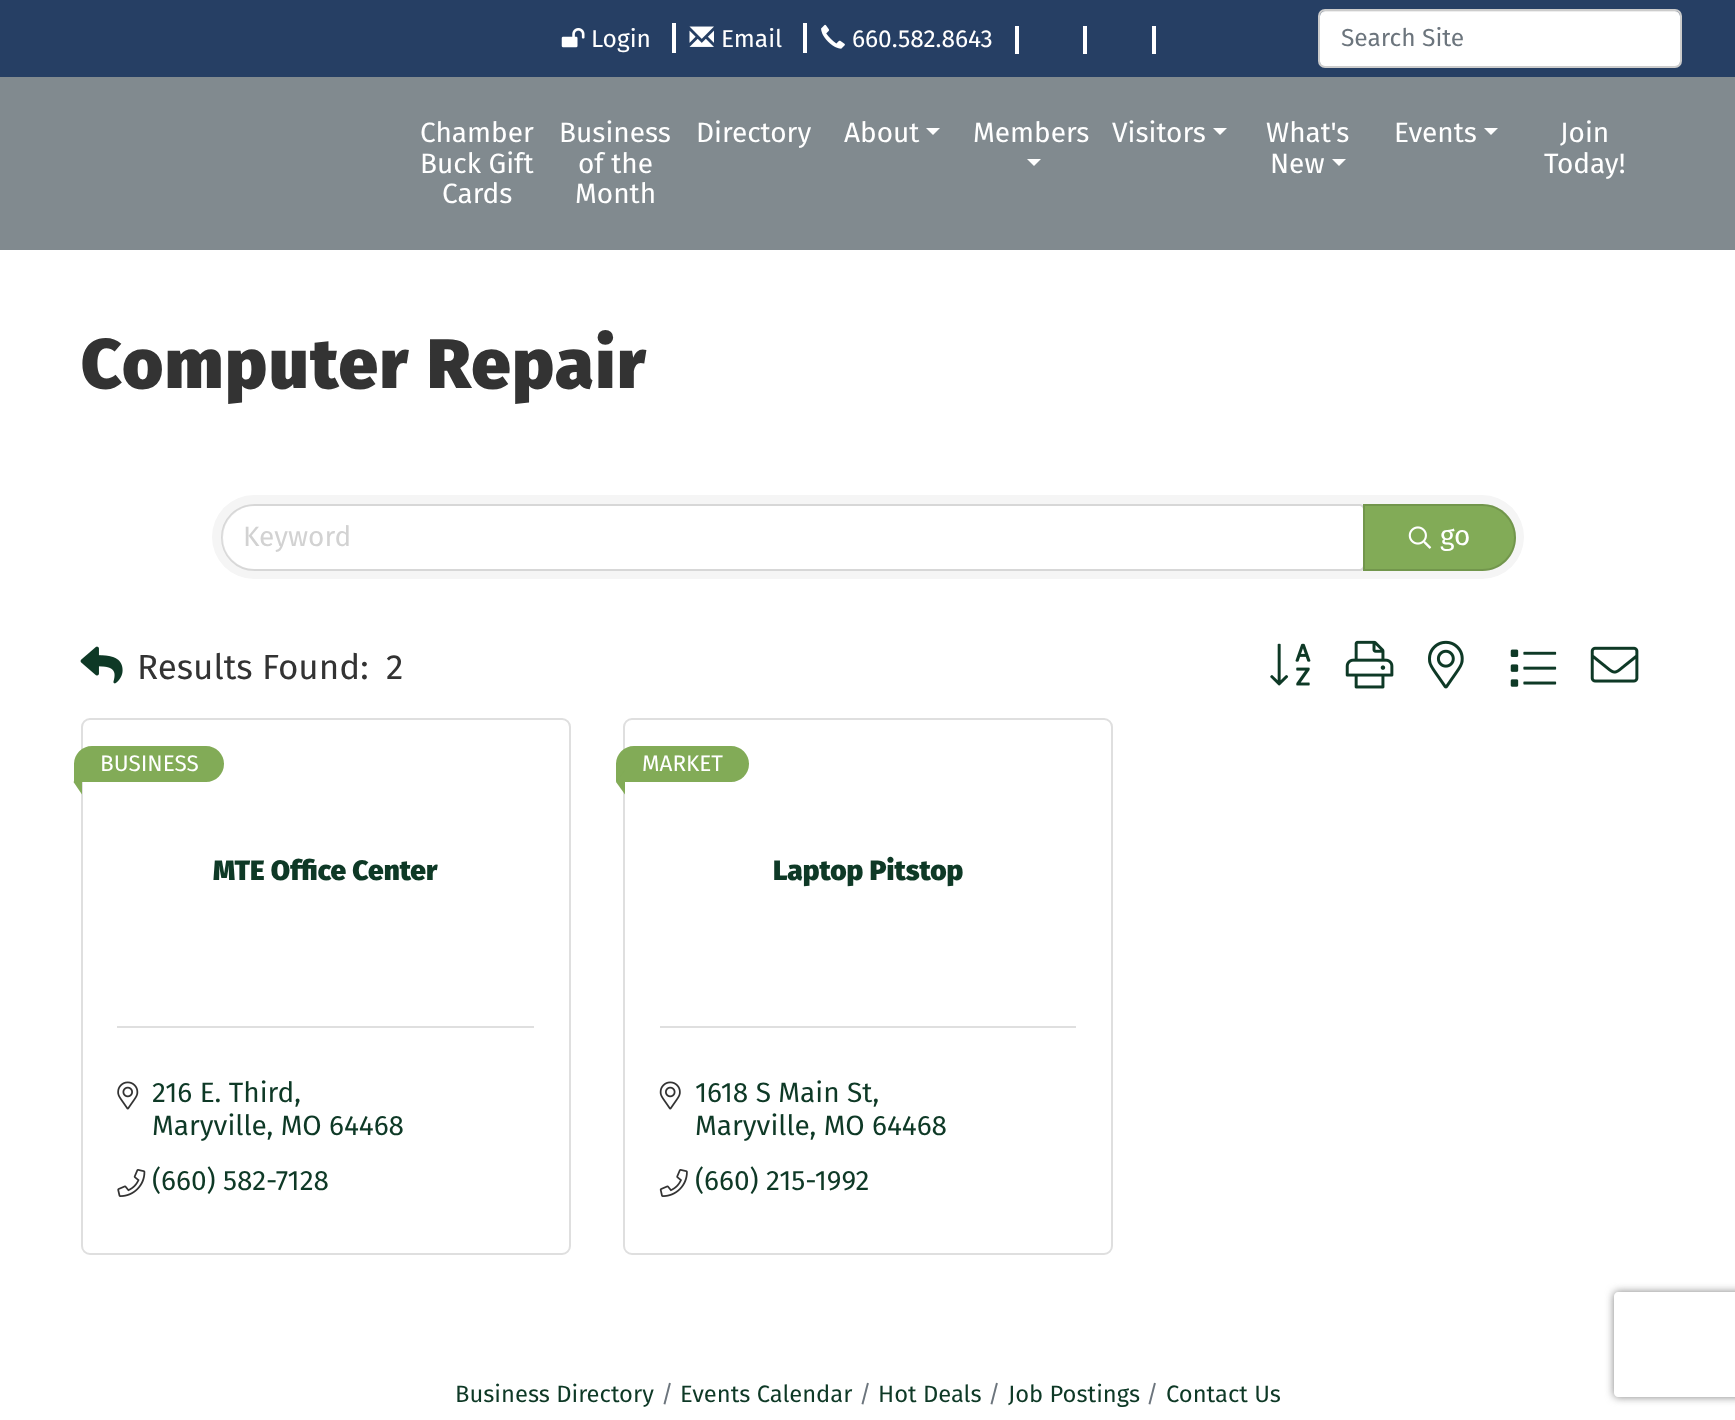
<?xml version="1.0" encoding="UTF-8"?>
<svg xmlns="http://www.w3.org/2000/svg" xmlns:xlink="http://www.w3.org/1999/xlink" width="1735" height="1420">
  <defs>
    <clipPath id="clip1"><path d="M 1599 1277 h 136 v 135 h -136 z m 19 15 h 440 c 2 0 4 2 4 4 v 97 c 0 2 -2 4 -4 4 h -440 c -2 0 -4 -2 -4 -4 v -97 c 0 -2 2 -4 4 -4 z" clip-rule="evenodd" /></clipPath>
  </defs>
  <rect width="100%" height="100%" fill="#ffffff" />
  <rect width="1735" height="77" fill="#263f64" />
  <image x="561" y="28" width="24" height="20" xlink:href="image1.png" />
  <rect x="672" y="23" width="4" height="30" fill="#ffffff" />
  <image x="689" y="26" width="25" height="21" xlink:href="image2.png" />
  <rect x="803" y="23" width="4" height="30" fill="#ffffff" />
  <image x="821" y="24" width="24" height="25" xlink:href="image3.png" />
  <rect x="1015" y="26" width="4" height="28" fill="#ffffff" />
  <rect x="1083" y="26" width="4" height="28" fill="#ffffff" />
  <rect x="1152" y="26" width="4" height="28" fill="#ffffff" />
  <rect x="1320" y="11" width="360" height="56" rx="5" fill="#ffffff" />
  <path d="M 1325 12 h 350 c 3 0 5 3 5 6 c 0 -3 -1 -7 -5 -7 h -350 c -4 0 -5 4 -5 7 c 0 -3 2 -6 5 -6 z" fill="#000000" fill-opacity="0.07" />
  <rect x="1319" y="10" width="362" height="57" rx="6" fill="none" stroke="#cccccc" stroke-width="2" />
  <rect y="77" width="1735" height="173" fill="#818a8f" />
  <path d="M 926 128 h 14 l -7 7 z" fill="#ffffff" />
  <path d="M 1027 159 h 14 l -7 7 z" fill="#ffffff" />
  <path d="M 1213 128 h 14 l -7 7 z" fill="#ffffff" />
  <path d="M 1332 159 h 14 l -7 7 z" fill="#ffffff" />
  <path d="M 1484 128 h 14 l -7 7 z" fill="#ffffff" />
  <rect x="212" y="495" width="1312" height="84" rx="42" fill="#f5f5f5" />
  <path d="M 253.5 506 h 1105.5 c 2 0 4 2 4 4 v 55 c 0 2 -2 4 -4 4 h -1105.5 c -17.5 0 -31.5 -14 -31.5 -31.5 c 0 -17.5 14 -31.5 31.5 -31.5 z" fill="#ffffff" />
  <path d="M 254.5 505 h 1105.5 c 2 0 4 2 4 4 v 57 c 0 2 -2 4 -4 4 h -1105.5 c -18 0 -32.5 -14.5 -32.5 -32.5 c 0 -18 14.5 -32.5 32.5 -32.5 z" fill="none" stroke="#000000" stroke-opacity="0.12" stroke-width="2" />
  <path d="M 1363 504 h 119.5 c 18.5 0 33.5 15 33.5 33.5 c 0 18.5 -15 33.5 -33.5 33.5 h -119.5 z" fill="#82ab57" />
  <path d="M 1364 505 h 118.5 c 18 0 32.5 14.5 32.5 32.5 c 0 18 -14.5 32.5 -32.5 32.5 h -118.5 z" fill="none" stroke="#000000" stroke-opacity="0.12" stroke-width="2" />
  <image x="1408" y="526" width="24" height="23" xlink:href="image4.png" />
  <image x="80" y="646" width="43" height="38" xlink:href="image5.png" />
  <image x="1270" y="643" width="41" height="43" xlink:href="image6.png" />
  <image x="1345" y="640" width="49" height="49" xlink:href="image7.png" />
  <image x="1428" y="640" width="36" height="49" xlink:href="image8.png" />
  <image x="1510" y="649" width="47" height="38" xlink:href="image9.png" />
  <image x="1590" y="646" width="49" height="37" xlink:href="image10.png" />
  <rect x="82" y="719" width="488" height="535" rx="8" fill="none" stroke="#dfdfdf" stroke-width="2" />
  <path d="M 92 746 h 114 c 10 0 18 8 18 18 c 0 10 -8 18 -18 18 h -131 c -0.5 0 -1 -0.5 -1 -1 v -17 c 0 -10 8 -18 18 -18 z" fill="#82ab57" />
  <path d="M 82 770 v 24.5 l -8.5 -12.5 z" fill="#82ab57" />
  <rect x="117" y="1026" width="417" height="2" fill="#dfdfdf" />
  <image x="117" y="1081" width="22" height="29" xlink:href="image11.png" />
  <image x="117" y="1169" width="29" height="28" xlink:href="image12.png" />
  <rect x="624" y="719" width="488" height="535" rx="8" fill="none" stroke="#dfdfdf" stroke-width="2" />
  <path d="M 634 746 h 97 c 10 0 18 8 18 18 c 0 10 -8 18 -18 18 h -114 c -0.5 0 -1 -0.5 -1 -1 v -17 c 0 -10 8 -18 18 -18 z" fill="#82ab57" />
  <path d="M 625 770 v 24.5 l -9 -12.5 z" fill="#82ab57" />
  <rect x="660" y="1026" width="416" height="2" fill="#dfdfdf" />
  <image x="659" y="1081" width="22" height="29" xlink:href="image13.png" />
  <image x="659" y="1169" width="29" height="28" xlink:href="image14.png" />
  <g clip-path="url(#clip1)">
    <rect x="1614" y="1292" width="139" height="105" rx="4" fill="#808080" filter="blur(4.5px)" />
  </g>
  <text x="591" y="47" style="font-family: Fira Sans; font-size: 24.5px; fill: #ffffff">Login</text>
  <text x="721" y="47" style="font-family: Fira Sans; font-size: 24.5px; fill: #ffffff">Email</text>
  <text x="852" y="47" style="font-family: Fira Sans; font-size: 24.5px; fill: #ffffff">660.582.8643</text>
  <text x="1341" y="46" style="font-family: Fira Sans; font-size: 24.5px; fill: #6c757d">Search Site</text>
  <text x="420" y="142" style="font-family: Fira Sans; font-size: 28px; fill: #ffffff">Chamber</text>
  <text x="420" y="173" style="font-family: Fira Sans; font-size: 28px; fill: #ffffff">Buck Gift</text>
  <text x="442" y="203" style="font-family: Fira Sans; font-size: 28px; fill: #ffffff">Cards</text>
  <text x="559" y="142" style="font-family: Fira Sans; font-size: 28px; fill: #ffffff">Business</text>
  <text x="578" y="173" style="font-family: Fira Sans; font-size: 28px; fill: #ffffff">of the</text>
  <text x="575" y="203" style="font-family: Fira Sans; font-size: 28px; fill: #ffffff">Month</text>
  <text x="696" y="142" style="font-family: Fira Sans; font-size: 28px; fill: #ffffff">Directory</text>
  <text x="844" y="142" style="font-family: Fira Sans; font-size: 28px; fill: #ffffff">About</text>
  <text x="973" y="142" style="font-family: Fira Sans; font-size: 28px; fill: #ffffff">Members</text>
  <text x="1112" y="142" style="font-family: Fira Sans; font-size: 28px; fill: #ffffff">Visitors</text>
  <text x="1266" y="142" style="font-family: Fira Sans; font-size: 28px; fill: #ffffff">What's</text>
  <text x="1270" y="173" style="font-family: Fira Sans; font-size: 28px; fill: #ffffff">New</text>
  <text x="1394" y="142" style="font-family: Fira Sans; font-size: 28px; fill: #ffffff">Events</text>
  <text x="1560" y="142" style="font-family: Fira Sans; font-size: 28px; fill: #ffffff">Join</text>
  <text x="1544" y="173" style="font-family: Fira Sans; font-size: 28px; fill: #ffffff">Today!</text>
  <text x="81" y="388" style="font-family: Fira Sans; font-size: 70px; font-weight: 900; letter-spacing: 1.75px; fill: #333333">Computer Repair</text>
  <text x="243" y="546" style="font-family: Fira Sans; font-size: 28px; fill: #d2d2d2">Keyword</text>
  <text x="1440" y="545" style="font-family: Fira Sans; font-size: 28px; fill: #ffffff">go</text>
  <text x="137" y="679" style="font-family: Fira Sans; font-size: 35px; fill: #333333">Results Found:</text>
  <text x="386" y="679" style="font-family: Fira Sans; font-size: 35px; fill: #333333">2</text>
  <text x="100" y="771" style="font-family: Fira Sans; font-size: 22.5px; fill: #ffffff">BUSINESS</text>
  <text x="213" y="880" style="font-family: Fira Sans; font-size: 28px; font-weight: 900; fill: #0e3926">MTE Office Center</text>
  <text x="152" y="1102" style="font-family: Fira Sans; font-size: 28px; fill: #0e3926">216 E. Third,</text>
  <text x="152" y="1135" style="font-family: Fira Sans; font-size: 28px; fill: #0e3926">Maryville, MO 64468</text>
  <text x="152" y="1190" style="font-family: Fira Sans; font-size: 28px; fill: #0e3926">(660) 582-7128</text>
  <text x="642" y="771" style="font-family: Fira Sans; font-size: 22.5px; fill: #ffffff">MARKET</text>
  <text x="773" y="880" style="font-family: Fira Sans; font-size: 28px; font-weight: 900; fill: #0e3926">Laptop Pitstop</text>
  <text x="695" y="1102" style="font-family: Fira Sans; font-size: 28px; fill: #0e3926">1618 S Main St,</text>
  <text x="695" y="1135" style="font-family: Fira Sans; font-size: 28px; fill: #0e3926">Maryville, MO 64468</text>
  <text x="695" y="1190" style="font-family: Fira Sans; font-size: 28px; fill: #0e3926">(660) 215-1992</text>
  <text x="455" y="1402" style="font-family: Fira Sans; font-size: 23.75px; fill: #0e3926">Business Directory</text>
  <text x="661" y="1402" style="font-family: Fira Sans; font-size: 23.75px; fill: #6c757d">/</text>
  <text x="680" y="1402" style="font-family: Fira Sans; font-size: 23.75px; fill: #0e3926">Events Calendar</text>
  <text x="859" y="1402" style="font-family: Fira Sans; font-size: 23.75px; fill: #6c757d">/</text>
  <text x="878" y="1402" style="font-family: Fira Sans; font-size: 23.75px; fill: #0e3926">Hot Deals</text>
  <text x="988" y="1402" style="font-family: Fira Sans; font-size: 23.75px; fill: #6c757d">/</text>
  <text x="1008" y="1402" style="font-family: Fira Sans; font-size: 23.75px; fill: #0e3926">Job Postings</text>
  <text x="1146" y="1402" style="font-family: Fira Sans; font-size: 23.75px; fill: #6c757d">/</text>
  <text x="1166" y="1402" style="font-family: Fira Sans; font-size: 23.75px; fill: #0e3926">Contact Us</text>
</svg>
